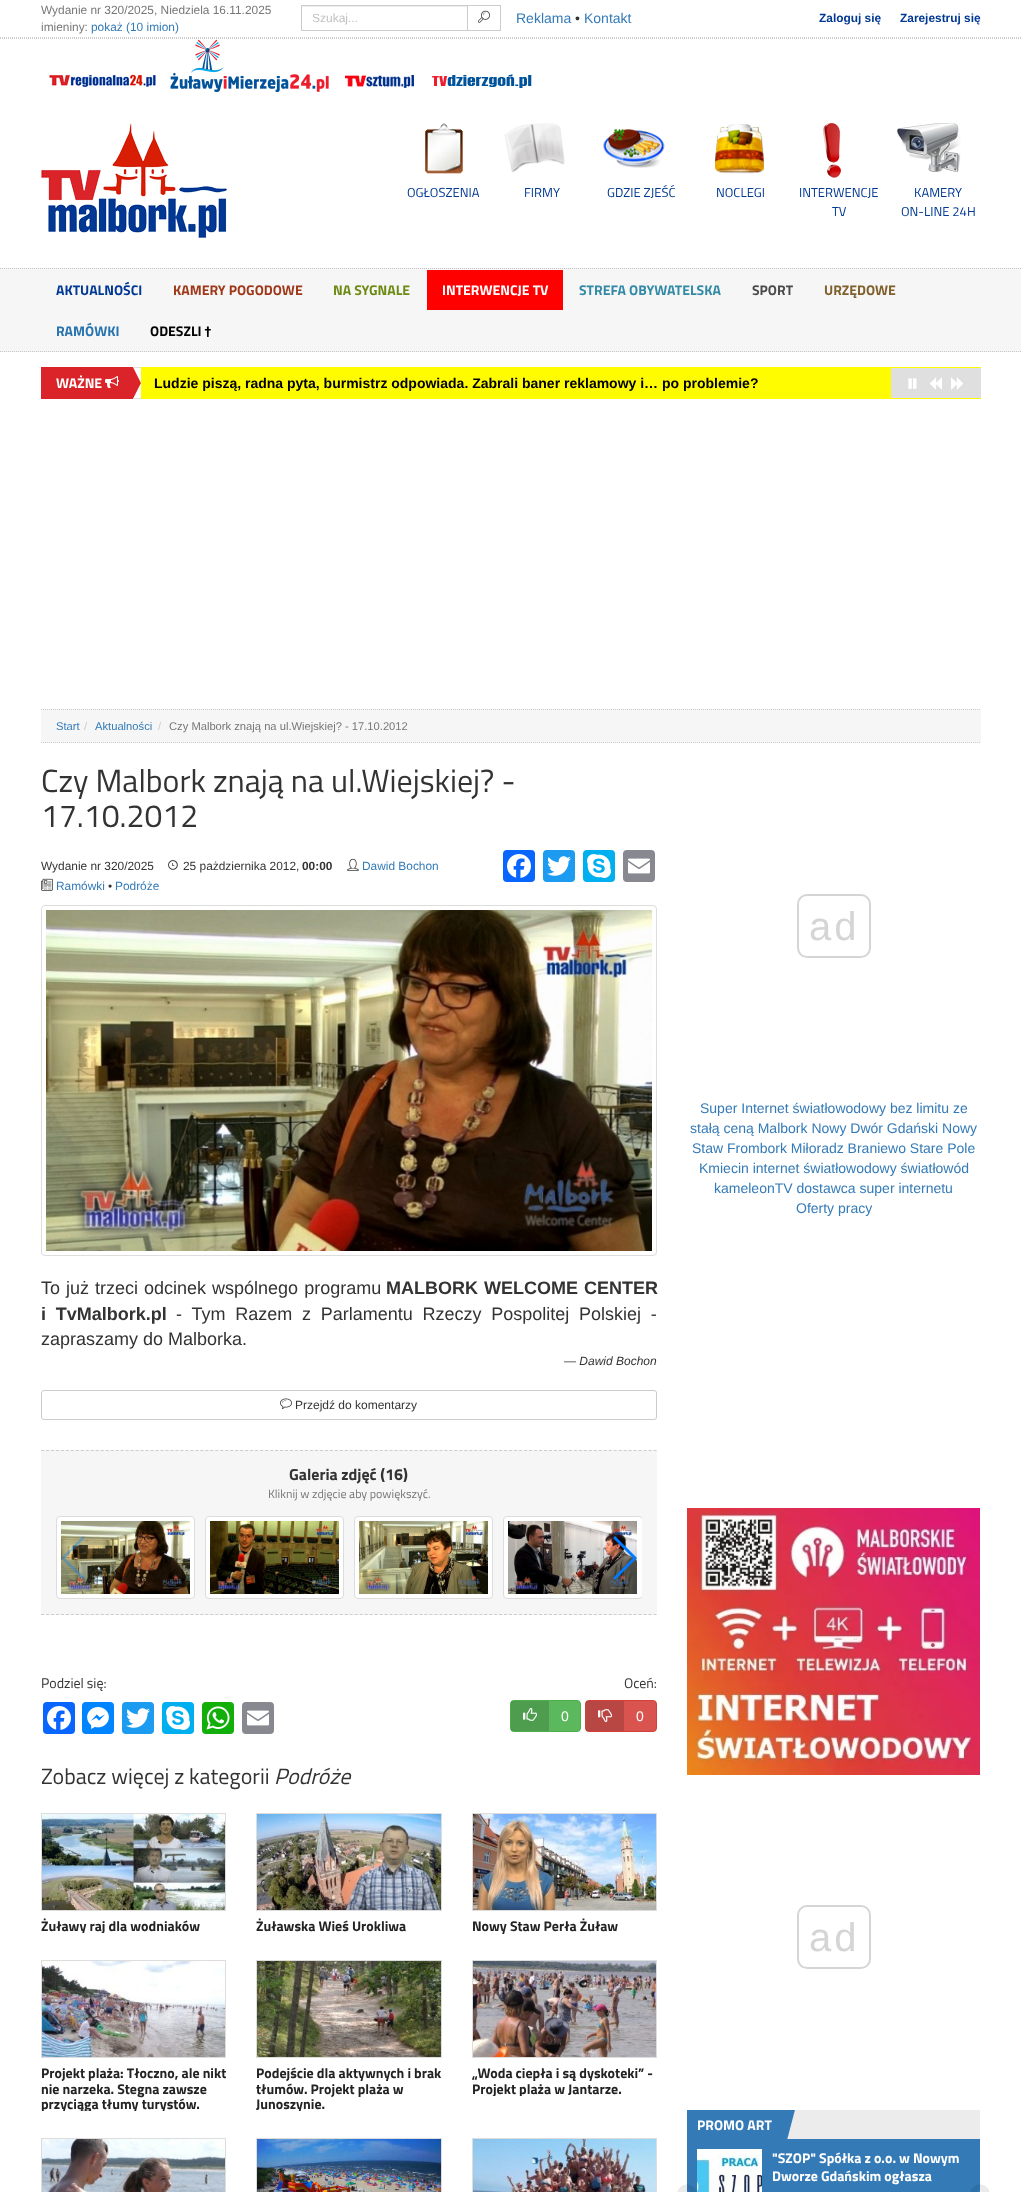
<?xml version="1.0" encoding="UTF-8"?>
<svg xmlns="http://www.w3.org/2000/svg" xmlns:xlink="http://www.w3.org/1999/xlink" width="1021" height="2192">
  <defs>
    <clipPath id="clip1"><rect x="56" y="1516" width="586" height="83" /></clipPath>
    <clipPath id="clip2"><rect x="687" y="2110" width="293" height="29" /></clipPath>
    <clipPath id="clip3"><rect x="41" y="1918" width="185" height="15" /></clipPath>
    <clipPath id="clip4"><rect x="41" y="2065" width="185" height="46" /></clipPath>
    <clipPath id="clip5"><rect x="256" y="2065" width="186" height="46" /></clipPath>
    <clipPath id="clip6"><rect x="472" y="2065" width="185" height="31" /></clipPath>
  </defs>
  <rect width="100%" height="100%" fill="#ffffff" />
  <rect x="302" y="6" width="165" height="1" fill="#ececec" />
  <rect x="467.5" y="5.5" width="33" height="25" fill="none" stroke="#cccccc" />
  <rect x="301.5" y="5.5" width="166" height="25" fill="none" stroke="#cccccc" />
  <image x="478" y="10" width="12" height="13" xlink:href="image1.png" />
  <path d="M 0 37.5 h 1021" fill="none" stroke="#cccccc" stroke-dasharray="1 1" />
  <path d="M 0 38.5 h 1021" fill="none" stroke="#cccccc" stroke-dasharray="1 1" />
  <image x="49" y="74" width="107" height="13" xlink:href="image2.png" />
  <image x="170" y="39" width="159" height="54" xlink:href="image3.png" />
  <image x="345" y="75" width="69" height="13" xlink:href="image4.png" />
  <image x="432" y="74" width="100" height="14" xlink:href="image5.png" />
  <image x="41" y="123" width="186" height="115" xlink:href="image6.png" />
  <image x="425" y="123" width="38" height="51" xlink:href="image7.png" />
  <image x="504" y="123" width="61" height="50" xlink:href="image8.png" />
  <image x="603" y="129" width="62" height="39" xlink:href="image9.png" />
  <image x="715" y="124" width="49" height="50" xlink:href="image10.png" />
  <image x="823" y="123" width="18" height="55" xlink:href="image11.png" />
  <image x="897" y="123" width="64" height="50" xlink:href="image12.png" />
  <rect y="268" width="1021" height="84" fill="#f6f6f6" />
  <path d="M 0 268.5 h 1021" fill="none" stroke="#c5c5c5" stroke-dasharray="1 1" />
  <path d="M 0 351.5 h 1021" fill="none" stroke="#c5c5c5" stroke-dasharray="1 1" />
  <rect x="427" y="270" width="136" height="40" fill="#ff0000" />
  <rect x="141" y="367" width="840" height="32" fill="#fffc00" />
  <rect x="41" y="367" width="100" height="32" fill="#db2429" />
  <image x="133" y="367" width="8" height="32" xlink:href="image13.png" />
  <image x="105" y="376" width="14" height="12" xlink:href="image14.png" />
  <rect x="891" y="368" width="90" height="30" fill="#dfdfdf" />
  <image x="908" y="378" width="9" height="11" xlink:href="image15.png" />
  <image x="930" y="377" width="12" height="13" xlink:href="image16.png" />
  <image x="951" y="377" width="12" height="13" xlink:href="image17.png" />
  <rect x="41" y="709" width="940" height="34" fill="#f6f6f6" />
  <path d="M 41 709.5 h 940" fill="none" stroke="#cccccc" stroke-dasharray="1 1" />
  <path d="M 41 742.5 h 940" fill="none" stroke="#cccccc" stroke-dasharray="1 1" />
  <image x="168" y="860" width="10" height="10" xlink:href="image18.png" />
  <image x="347" y="858" width="12" height="13" xlink:href="image19.png" />
  <image x="41" y="878" width="12" height="13" xlink:href="image20.png" />
  <rect x="503" y="850" width="32" height="32" rx="4" fill="#0866ff" />
  <image x="507" y="854" width="24" height="24" xlink:href="image21.png" />
  <rect x="543" y="850" width="32" height="32" rx="4" fill="#1d9bf0" />
  <image x="547" y="856" width="24" height="20" xlink:href="image22.png" />
  <rect x="583" y="850" width="32" height="32" rx="4" fill="#00aff0" />
  <image x="587" y="854" width="24" height="24" xlink:href="image23.png" />
  <rect x="623" y="850" width="32" height="32" rx="4" fill="#888990" />
  <image x="628" y="858" width="22" height="16" xlink:href="image24.png" />
  <rect x="41.5" y="905.5" width="615" height="350" rx="3.5" fill="none" stroke="#dddddd" />
  <image x="46" y="910" width="606" height="341" xlink:href="image25.png" />
  <rect x="41.5" y="1390.5" width="615" height="29" rx="2.5" fill="none" stroke="#cccccc" />
  <image x="280" y="1398" width="12" height="11" xlink:href="image26.png" />
  <rect x="41" y="1450" width="616" height="165" fill="#f6f6f6" />
  <path d="M 41 1450.5 h 616" fill="none" stroke="#cccccc" stroke-dasharray="3 1.98" />
  <path d="M 41 1614.5 h 616" fill="none" stroke="#cccccc" stroke-dasharray="3 1.98" />
  <rect x="56.5" y="1516.5" width="138" height="82" rx="3.5" fill="#ffffff" stroke="#dddddd" />
  <image x="61" y="1521" width="129" height="73" xlink:href="image27.png" />
  <rect x="205.5" y="1516.5" width="138" height="82" rx="3.5" fill="#ffffff" stroke="#dddddd" />
  <image x="210" y="1521" width="129" height="73" xlink:href="image28.png" />
  <rect x="354.5" y="1516.5" width="138" height="82" rx="3.5" fill="#ffffff" stroke="#dddddd" />
  <image x="359" y="1521" width="129" height="73" xlink:href="image29.png" />
  <g clip-path="url(#clip1)">
    <rect x="503.5" y="1516.5" width="139" height="82" rx="3.5" fill="#ffffff" stroke="#dddddd" />
  </g>
  <image x="508" y="1521" width="129" height="73" xlink:href="image30.png" />
  <path d="M 61 1558 l 22 -22 l 2 2 l -20 20 l 20 20 l -2 2 z" fill="#007aff" fill-opacity="0.35" />
  <path d="M 637 1558 l -22 22 l -2 -2 l 20 -20 l -20 -20 l 2 -2 z" fill="#007aff" />
  <rect x="43" y="1702" width="32" height="32" rx="4" fill="#0866ff" />
  <image x="47" y="1706" width="24" height="24" xlink:href="image21.png" />
  <rect x="82" y="1702" width="32" height="32" rx="4" fill="#0084ff" />
  <image x="87" y="1707" width="22" height="22" xlink:href="image31.png" />
  <rect x="122" y="1702" width="32" height="32" rx="4" fill="#1d9bf0" />
  <image x="126" y="1708" width="24" height="20" xlink:href="image22.png" />
  <rect x="162" y="1702" width="32" height="32" rx="4" fill="#00aff0" />
  <image x="166" y="1706" width="24" height="24" xlink:href="image23.png" />
  <rect x="202" y="1702" width="32" height="32" rx="4" fill="#12af0a" />
  <image x="206" y="1706" width="24" height="24" xlink:href="image32.png" />
  <rect x="242" y="1702" width="32" height="32" rx="4" fill="#888990" />
  <image x="247" y="1710" width="22" height="16" xlink:href="image24.png" />
  <rect x="510.5" y="1700.5" width="70" height="31" rx="3.5" fill="#5cb85c" stroke="#4cae4c" />
  <rect x="511" y="1701" width="38" height="30" fill="#000000" fill-opacity="0.15" />
  <image x="523" y="1708" width="14" height="13" xlink:href="image33.png" />
  <rect x="585.5" y="1700.5" width="71" height="31" rx="3.5" fill="#d9534f" stroke="#d43f3a" />
  <rect x="586" y="1701" width="38" height="30" fill="#000000" fill-opacity="0.15" />
  <image x="598" y="1709" width="14" height="13" xlink:href="image34.png" />
  <rect x="41.5" y="1813.5" width="184" height="97" fill="none" stroke="#dddddd" />
  <image x="42" y="1814" width="183" height="96" xlink:href="image35.png" />
  <rect x="256.5" y="1813.5" width="185" height="97" fill="none" stroke="#dddddd" />
  <image x="257" y="1814" width="184" height="96" xlink:href="image36.png" />
  <rect x="472.5" y="1813.5" width="184" height="97" fill="none" stroke="#dddddd" />
  <image x="473" y="1814" width="183" height="96" xlink:href="image37.png" />
  <rect x="41.5" y="1960.5" width="184" height="97" fill="none" stroke="#dddddd" />
  <image x="42" y="1961" width="183" height="96" xlink:href="image38.png" />
  <rect x="256.5" y="1960.5" width="185" height="97" fill="none" stroke="#dddddd" />
  <image x="257" y="1961" width="184" height="96" xlink:href="image39.png" />
  <rect x="472.5" y="1960.5" width="184" height="97" fill="none" stroke="#dddddd" />
  <image x="473" y="1961" width="183" height="96" xlink:href="image40.png" />
  <rect x="41.5" y="2138.5" width="184" height="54" fill="none" stroke="#dddddd" />
  <image x="42" y="2139" width="183" height="53" xlink:href="image41.png" />
  <rect x="256.5" y="2138.5" width="185" height="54" fill="none" stroke="#dddddd" />
  <image x="257" y="2139" width="184" height="53" xlink:href="image42.png" />
  <rect x="472.5" y="2138.5" width="184" height="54" fill="none" stroke="#dddddd" />
  <image x="473" y="2139" width="183" height="53" xlink:href="image43.png" />
  <rect x="798" y="895" width="72" height="62" rx="9" fill="none" stroke="#d5d5d5" stroke-width="2" />
  <image x="687" y="1508" width="293" height="267" xlink:href="image44.png" />
  <rect x="798" y="1906" width="72" height="62" rx="9" fill="none" stroke="#d5d5d5" stroke-width="2" />
  <rect x="787" y="2110" width="193" height="29" fill="#ececec" />
  <rect x="687" y="2110" width="80" height="29" fill="#337ab7" />
  <g clip-path="url(#clip2)">
    <path d="M 758 2095 l 38 11 l -10 38 l -39 -10 z" fill="#337ab7" />
  </g>
  <rect x="687" y="2139" width="293" height="53" fill="#337ab7" />
  <image x="697" y="2149" width="65" height="43" xlink:href="image45.png" />
  <image x="677" y="2184" width="20" height="8" xlink:href="image46.png" />
  <image x="970" y="2184" width="20" height="8" xlink:href="image47.png" />
  <text x="41" y="14" style="font-family: Liberation Sans; font-size: 11.9px; fill: #777777">Wydanie nr 320/2025, Niedziela 16.11.2025</text>
  <text x="41" y="31" style="font-family: Liberation Sans; font-size: 11.9px; fill: #777777">imieniny:</text>
  <text x="91" y="31" style="font-family: Liberation Sans; font-size: 11.9px; fill: #337ab7">pokaż (10 imion)</text>
  <text x="312" y="22" style="font-family: Liberation Sans; font-size: 12px; fill: #c1c1c1">Szukaj...</text>
  <text x="516" y="23" style="font-family: Liberation Sans; font-size: 14px; fill: #337ab7">Reklama</text>
  <text x="575" y="23" style="font-family: Liberation Sans; font-size: 14px; fill: #333333">•</text>
  <text x="584" y="23" style="font-family: Liberation Sans; font-size: 14px; fill: #337ab7">Kontakt</text>
  <text x="819" y="22" style="font-family: Liberation Sans; font-size: 11.9px; font-weight: bold; fill: #013893">Zaloguj się</text>
  <text x="900" y="22" style="font-family: Liberation Sans; font-size: 11.9px; font-weight: bold; fill: #013893">Zarejestruj się</text>
  <text x="407" y="197" style="font-family: Titillium Web; font-size: 13px; fill: #013893">OGŁOSZENIA</text>
  <text x="524" y="197" style="font-family: Titillium Web; font-size: 13px; fill: #013893">FIRMY</text>
  <text x="607" y="197" style="font-family: Titillium Web; font-size: 13px; fill: #013893">GDZIE ZJEŚĆ</text>
  <text x="716" y="197" style="font-family: Titillium Web; font-size: 13px; fill: #013893">NOCLEGI</text>
  <text x="799" y="197" style="font-family: Titillium Web; font-size: 13px; fill: #013893">INTERWENCJE</text>
  <text x="832" y="216" style="font-family: Titillium Web; font-size: 13px; fill: #013893">TV</text>
  <text x="914" y="197" style="font-family: Titillium Web; font-size: 13px; fill: #013893">KAMERY</text>
  <text x="901" y="216" style="font-family: Titillium Web; font-size: 13px; fill: #013893">ON-LINE 24H</text>
  <text x="56" y="295" style="font-family: Titillium Web; font-size: 14px; font-weight: bold; fill: #013893">AKTUALNOŚCI</text>
  <text x="173" y="295" style="font-family: Titillium Web; font-size: 14px; font-weight: bold; fill: #9f3819">KAMERY POGODOWE</text>
  <text x="333" y="295" style="font-family: Titillium Web; font-size: 14px; font-weight: bold; fill: #6d8b13">NA SYGNALE</text>
  <text x="442" y="295" style="font-family: Titillium Web; font-size: 14px; font-weight: bold; fill: #ffffff">INTERWENCJE TV</text>
  <text x="579" y="295" style="font-family: Titillium Web; font-size: 14px; font-weight: bold; fill: #338aa6">STREFA OBYWATELSKA</text>
  <text x="752" y="295" style="font-family: Titillium Web; font-size: 14px; font-weight: bold; fill: #4b4b4b">SPORT</text>
  <text x="824" y="295" style="font-family: Titillium Web; font-size: 14px; font-weight: bold; fill: #7f5f2b">URZĘDOWE</text>
  <text x="56" y="336" style="font-family: Titillium Web; font-size: 14px; font-weight: bold; fill: #2774af">RAMÓWKI</text>
  <text x="150" y="336" style="font-family: Titillium Web; font-size: 14px; font-weight: bold; fill: #000000">ODESZLI †</text>
  <text x="56" y="388" style="font-family: Titillium Web; font-size: 14px; font-weight: bold; fill: #ffffff">WAŻNE</text>
  <text x="154" y="388" style="font-family: Liberation Sans; font-size: 14px; font-weight: bold; fill: #000000">Ludzie piszą, radna pyta, burmistrz odpowiada. Zabrali baner reklamowy i… po problemie?</text>
  <text x="56" y="730" style="font-family: Liberation Sans; font-size: 11.2px; fill: #337ab7">Start</text>
  <text x="84" y="730" style="font-family: Liberation Sans; font-size: 11.2px; fill: #cccccc">/</text>
  <text x="95" y="730" style="font-family: Liberation Sans; font-size: 11.2px; fill: #337ab7">Aktualności</text>
  <text x="158" y="730" style="font-family: Liberation Sans; font-size: 11.2px; fill: #cccccc">/</text>
  <text x="169" y="730" style="font-family: Liberation Sans; font-size: 11.2px; fill: #777777">Czy Malbork znają na ul.Wiejskiej? - 17.10.2012</text>
  <text x="41" y="792" style="font-family: Titillium Web; font-size: 32px; fill: #333333">Czy Malbork znają na ul.Wiejskiej? -</text>
  <text x="41" y="827" style="font-family: Titillium Web; font-size: 32px; fill: #333333">17.10.2012</text>
  <text x="41" y="870" style="font-family: Liberation Sans; font-size: 11.9px; fill: #333333">Wydanie nr 320/2025</text>
  <text x="183" y="870" style="font-family: Liberation Sans; font-size: 11.9px; fill: #333333">25 pażdziernika 2012,</text>
  <text x="302" y="870" style="font-family: Liberation Sans; font-size: 11.9px; font-weight: bold; fill: #333333">00:00</text>
  <text x="362" y="870" style="font-family: Liberation Sans; font-size: 11.9px; fill: #337ab7">Dawid Bochon</text>
  <text x="56" y="890" style="font-family: Liberation Sans; font-size: 11.9px; fill: #337ab7">Ramówki</text>
  <text x="108" y="890" style="font-family: Liberation Sans; font-size: 11.9px; fill: #333333">•</text>
  <text x="115" y="890" style="font-family: Liberation Sans; font-size: 11.9px; fill: #337ab7">Podróże</text>
  <text x="41" y="1294" word-spacing="1" style="font-family: Liberation Sans; font-size: 18px; fill: #333333">To już trzeci odcinek wspólnego programu</text>
  <text x="386" y="1294" word-spacing="1" style="font-family: Liberation Sans; font-size: 18px; font-weight: bold; fill: #333333">MALBORK WELCOME CENTER</text>
  <text x="41" y="1320" word-spacing="4.75" style="font-family: Liberation Sans; font-size: 18px; font-weight: bold; fill: #333333">i TvMalbork.pl</text>
  <text x="176" y="1320" word-spacing="4.75" style="font-family: Liberation Sans; font-size: 18px; fill: #333333">- Tym Razem z Parlamentu Rzeczy Pospolitej Polskiej -</text>
  <text x="41" y="1345" style="font-family: Liberation Sans; font-size: 18px; fill: #333333">zapraszamy do Malborka.</text>
  <text x="564" y="1365" style="font-family: Liberation Sans; font-size: 12px; font-style: italic; fill: #333333">— Dawid Bochon</text>
  <text x="295" y="1409" style="font-family: Liberation Sans; font-size: 12px; fill: #333333">Przejdź do komentarzy</text>
  <text x="289" y="1480" style="font-family: Titillium Web; font-size: 16px; font-weight: bold; fill: #333333">Galeria zdjęć (16)</text>
  <text x="268" y="1498" style="font-family: Titillium Web; font-size: 12px; fill: #777777">Kliknij w zdjęcie aby powiększyć.</text>
  <text x="41" y="1688" style="font-family: Titillium Web; font-size: 14px; fill: #333333">Podziel się:</text>
  <text x="624" y="1688" style="font-family: Titillium Web; font-size: 14px; fill: #333333">Oceń:</text>
  <text x="561" y="1721" style="font-family: Liberation Sans; font-size: 14px; fill: #ffffff">0</text>
  <text x="636" y="1721" style="font-family: Liberation Sans; font-size: 14px; fill: #ffffff">0</text>
  <text x="41" y="1784" style="font-family: Titillium Web; font-size: 22px; fill: #333333">Zobacz więcej z kategorii</text>
  <text x="274" y="1784" style="font-family: Titillium Web; font-size: 22px; font-style: italic; fill: #333333">Podróże</text>
  <g clip-path="url(#clip3)">
    <text x="41" y="1931" style="font-family: Titillium Web; font-size: 14px; font-weight: bold; fill: #232323">Żuławy raj dla wodniaków</text>
  </g>
  <text x="256" y="1931" style="font-family: Titillium Web; font-size: 14px; font-weight: bold; fill: #232323">Żuławska Wieś Urokliwa</text>
  <text x="472" y="1931" style="font-family: Titillium Web; font-size: 14px; font-weight: bold; fill: #232323">Nowy Staw Perła Żuław</text>
  <text x="41" y="2078" style="font-family: Titillium Web; font-size: 14px; font-weight: bold; fill: #232323">Projekt plaża: Tłoczno, ale nikt</text>
  <text x="41" y="2094" style="font-family: Titillium Web; font-size: 14px; font-weight: bold; fill: #232323">nie narzeka. Stegna zawsze</text>
  <g clip-path="url(#clip4)">
    <text x="41" y="2109" style="font-family: Titillium Web; font-size: 14px; font-weight: bold; fill: #232323">przyciąga tłumy turystów.</text>
  </g>
  <text x="256" y="2078" style="font-family: Titillium Web; font-size: 14px; font-weight: bold; fill: #232323">Podejście dla aktywnych i brak</text>
  <text x="256" y="2094" style="font-family: Titillium Web; font-size: 14px; font-weight: bold; fill: #232323">tłumów. Projekt plaża w</text>
  <g clip-path="url(#clip5)">
    <text x="256" y="2109" style="font-family: Titillium Web; font-size: 14px; font-weight: bold; fill: #232323">Junoszynie.</text>
  </g>
  <text x="472" y="2078" style="font-family: Titillium Web; font-size: 14px; font-weight: bold; fill: #232323">„Woda ciepła i są dyskoteki” -</text>
  <g clip-path="url(#clip6)">
    <text x="472" y="2094" style="font-family: Titillium Web; font-size: 14px; font-weight: bold; fill: #232323">Projekt plaża w Jantarze.</text>
  </g>
  <text x="809" y="940" style="font-family: Liberation Sans; font-size: 40px; letter-spacing: 3px; fill: #d5d5d5">ad</text>
  <text x="700" y="1113" style="font-family: Liberation Sans; font-size: 14px; fill: #337ab7">Super Internet światłowodowy bez limitu ze</text>
  <text x="690" y="1133" style="font-family: Liberation Sans; font-size: 14px; fill: #337ab7">stałą ceną Malbork Nowy Dwór Gdański Nowy</text>
  <text x="692" y="1153" style="font-family: Liberation Sans; font-size: 14px; fill: #337ab7">Staw Frombork Miłoradz Braniewo Stare Pole</text>
  <text x="699" y="1173" style="font-family: Liberation Sans; font-size: 14px; fill: #337ab7">Kmiecin internet światłowodowy światłowód</text>
  <text x="714" y="1193" style="font-family: Liberation Sans; font-size: 14px; fill: #337ab7">kameleonTV dostawca super internetu</text>
  <text x="796" y="1213" style="font-family: Liberation Sans; font-size: 14px; fill: #337ab7">Oferty pracy</text>
  <text x="809" y="1951" style="font-family: Liberation Sans; font-size: 40px; letter-spacing: 3px; fill: #d5d5d5">ad</text>
  <text x="697" y="2130" style="font-family: Titillium Web; font-size: 14px; font-weight: bold; fill: #ffffff">PROMO ART</text>
  <text x="772" y="2163" style="font-family: Titillium Web; font-size: 14px; font-weight: bold; fill: #ffffff">"SZOP" Spółka z o.o. w Nowym</text>
  <text x="772" y="2181" style="font-family: Titillium Web; font-size: 14px; font-weight: bold; fill: #ffffff">Dworze Gdańskim ogłasza</text>
</svg>
